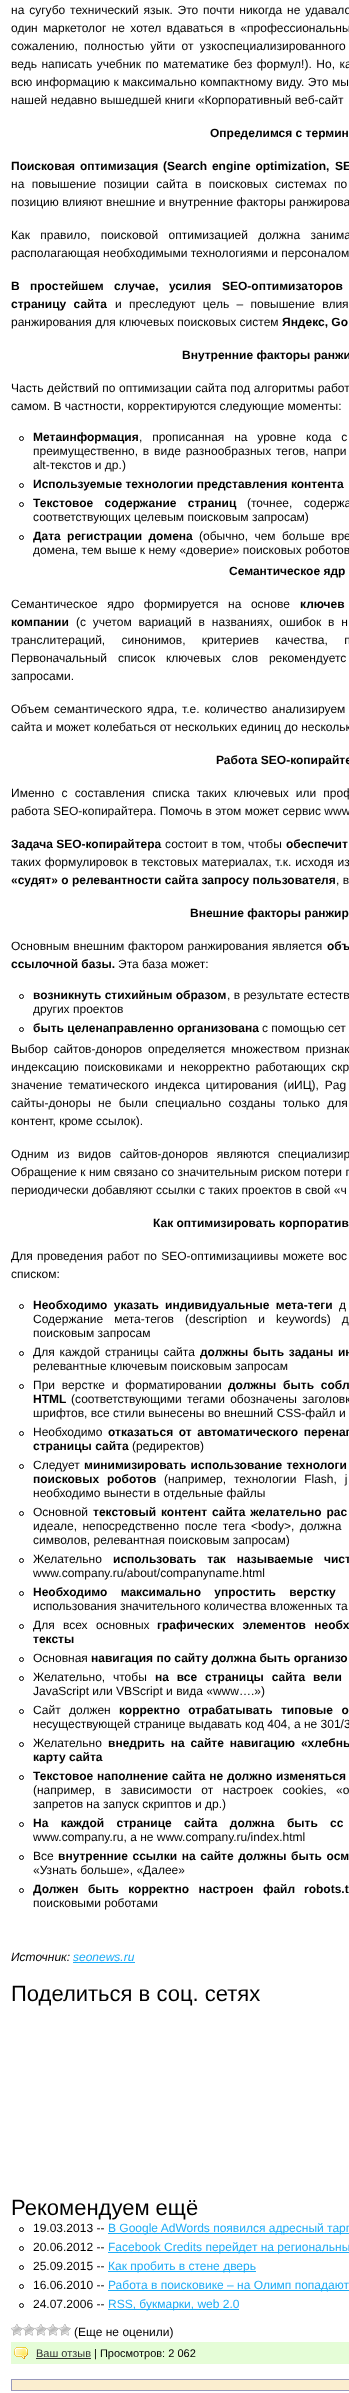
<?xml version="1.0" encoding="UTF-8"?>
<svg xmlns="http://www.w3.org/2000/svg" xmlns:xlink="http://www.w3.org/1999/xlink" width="349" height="2393">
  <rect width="100%" height="100%" fill="#ffffff" />
  <circle cx="21.5" cy="438.5" r="2" fill="none" stroke="#000000" />
  <circle cx="21.5" cy="485.5" r="2" fill="none" stroke="#000000" />
  <circle cx="21.5" cy="504.5" r="2" fill="none" stroke="#000000" />
  <circle cx="21.5" cy="537.5" r="2" fill="none" stroke="#000000" />
  <circle cx="21.5" cy="996.5" r="2" fill="none" stroke="#000000" />
  <circle cx="21.5" cy="1029.5" r="2" fill="none" stroke="#000000" />
  <circle cx="21.5" cy="1306.5" r="2" fill="none" stroke="#000000" />
  <circle cx="21.5" cy="1353.5" r="2" fill="none" stroke="#000000" />
  <circle cx="21.5" cy="1386.5" r="2" fill="none" stroke="#000000" />
  <circle cx="21.5" cy="1433.5" r="2" fill="none" stroke="#000000" />
  <circle cx="21.5" cy="1466.5" r="2" fill="none" stroke="#000000" />
  <circle cx="21.5" cy="1513.5" r="2" fill="none" stroke="#000000" />
  <circle cx="21.5" cy="1560.5" r="2" fill="none" stroke="#000000" />
  <circle cx="21.5" cy="1593.5" r="2" fill="none" stroke="#000000" />
  <circle cx="21.5" cy="1626.5" r="2" fill="none" stroke="#000000" />
  <circle cx="21.5" cy="1659.5" r="2" fill="none" stroke="#000000" />
  <circle cx="21.5" cy="1678.5" r="2" fill="none" stroke="#000000" />
  <circle cx="21.5" cy="1711.5" r="2" fill="none" stroke="#000000" />
  <circle cx="21.5" cy="1744.5" r="2" fill="none" stroke="#000000" />
  <circle cx="21.5" cy="1777.5" r="2" fill="none" stroke="#000000" />
  <circle cx="21.5" cy="1824.5" r="2" fill="none" stroke="#000000" />
  <circle cx="21.5" cy="1857.5" r="2" fill="none" stroke="#000000" />
  <circle cx="21.5" cy="1890.5" r="2" fill="none" stroke="#000000" />
  <rect x="73" y="1962" width="62" height="1" fill="#1eacf5" />
  <circle cx="21.5" cy="2229.5" r="2" fill="none" stroke="#000000" />
  <rect x="108" y="2233" width="241" height="1" fill="#1eacf5" />
  <circle cx="21.5" cy="2248.5" r="2" fill="none" stroke="#000000" />
  <rect x="108" y="2252" width="241" height="1" fill="#1eacf5" />
  <circle cx="21.5" cy="2267.5" r="2" fill="none" stroke="#000000" />
  <rect x="108" y="2271" width="148" height="1" fill="#1eacf5" />
  <circle cx="21.5" cy="2286.5" r="2" fill="none" stroke="#000000" />
  <rect x="108" y="2290" width="241" height="1" fill="#1eacf5" />
  <circle cx="21.5" cy="2305.5" r="2" fill="none" stroke="#000000" />
  <rect x="108" y="2309" width="131" height="1" fill="#1eacf5" />
  <image x="11" y="2324" width="12" height="12" xlink:href="image1.png" />
  <image x="23" y="2324" width="12" height="12" xlink:href="image1.png" />
  <image x="35" y="2324" width="12" height="12" xlink:href="image1.png" />
  <image x="47" y="2324" width="12" height="12" xlink:href="image1.png" />
  <image x="59" y="2324" width="12" height="12" xlink:href="image1.png" />
  <rect x="11" y="2342" width="338" height="22" fill="#e5fdd7" />
  <image x="14" y="2347" width="14" height="12" xlink:href="image2.png" />
  <rect x="36" y="2358" width="55" height="1" fill="#333333" />
  <rect x="11.5" y="2379.5" width="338" height="11" fill="#fbeecf" stroke="#9999bb" />
  <text x="11" y="14" word-spacing="1.5" style="font-family: Liberation Sans; font-size: 12px; fill: #000000">на сугубо технический язык. Это почти никогда не удавало</text>
  <text x="11" y="32" word-spacing="2" style="font-family: Liberation Sans; font-size: 12px; fill: #000000">один маркетолог не хотел вдаваться в «профессиональны</text>
  <text x="11" y="50" word-spacing="3" style="font-family: Liberation Sans; font-size: 12px; fill: #000000">сожалению, полностью уйти от узкоспециализированного</text>
  <text x="11" y="68" word-spacing="1.25" style="font-family: Liberation Sans; font-size: 12px; fill: #000000">ведь написать учебник по математике без формул!). Но, ка</text>
  <text x="11" y="86" word-spacing="0.25" style="font-family: Liberation Sans; font-size: 12px; fill: #000000">всю информацию к максимально компактному виду. Это мы</text>
  <text x="11" y="104" style="font-family: Liberation Sans; font-size: 12px; fill: #000000">нашей недавно вышедшей книги «Корпоративный веб-сайт</text>
  <text x="210" y="137" style="font-family: Liberation Sans; font-size: 12px; font-weight: bold; fill: #000000">Определимся с термин</text>
  <text x="11" y="170" word-spacing="1.5" style="font-family: Liberation Sans; font-size: 12px; font-weight: bold; fill: #000000">Поисковая оптимизация (Search engine optimization,</text>
  <text x="335" y="170" style="font-family: Liberation Sans; font-size: 12px; font-weight: bold; fill: #000000">SE</text>
  <text x="11" y="188" word-spacing="4" style="font-family: Liberation Sans; font-size: 12px; fill: #000000">на повышение позиции сайта в поисковых системах по</text>
  <text x="11" y="206" style="font-family: Liberation Sans; font-size: 12px; fill: #000000">позицию влияют внешние и внутренние факторы ранжирова</text>
  <text x="11" y="239" word-spacing="7" style="font-family: Liberation Sans; font-size: 12px; fill: #000000">Как правило, поисковой оптимизацией должна занима</text>
  <text x="11" y="257" style="font-family: Liberation Sans; font-size: 12px; fill: #000000">располагающая необходимыми технологиями и персоналом</text>
  <text x="11" y="290" word-spacing="7" style="font-family: Liberation Sans; font-size: 12px; font-weight: bold; fill: #000000">В простейшем случае, усилия</text>
  <text x="222" y="290" word-spacing="7" style="font-family: Liberation Sans; font-size: 12px; font-weight: bold; fill: #000000">SEO-оптимизаторов</text>
  <text x="11" y="308" word-spacing="4" style="font-family: Liberation Sans; font-size: 12px; font-weight: bold; fill: #000000">страницу сайта</text>
  <text x="115" y="308" word-spacing="4" style="font-family: Liberation Sans; font-size: 12px; fill: #000000">и преследуют цель – повышение влия</text>
  <text x="11" y="326" style="font-family: Liberation Sans; font-size: 12px; fill: #000000">ранжирования для ключевых поисковых систем</text>
  <text x="282" y="326" style="font-family: Liberation Sans; font-size: 12px; font-weight: bold; fill: #000000">Яндекс, Go</text>
  <text x="182" y="359" style="font-family: Liberation Sans; font-size: 12px; font-weight: bold; fill: #000000">Внутренние факторы ранжи</text>
  <text x="11" y="392" word-spacing="0.25" style="font-family: Liberation Sans; font-size: 12px; fill: #000000">Часть действий по оптимизации сайта под алгоритмы работ</text>
  <text x="11" y="410" style="font-family: Liberation Sans; font-size: 12px; fill: #000000">самом. В частности, корректируются следующие моменты:</text>
  <text x="33" y="441" style="font-family: Liberation Sans; font-size: 12px; font-weight: bold; fill: #000000">Метаинформация</text>
  <text x="139" y="441" word-spacing="6.5" style="font-family: Liberation Sans; font-size: 12px; fill: #000000">, прописанная на уровне кода с</text>
  <text x="33" y="455" word-spacing="1.5" style="font-family: Liberation Sans; font-size: 12px; fill: #000000">преимущественно, в виде разнообразных тегов, напри</text>
  <text x="33" y="469" style="font-family: Liberation Sans; font-size: 12px; fill: #000000">alt-текстов и др.)</text>
  <text x="33" y="488" style="font-family: Liberation Sans; font-size: 12px; font-weight: bold; fill: #000000">Используемые технологии представления контента</text>
  <text x="33" y="507" word-spacing="8" style="font-family: Liberation Sans; font-size: 12px; font-weight: bold; fill: #000000">Текстовое содержание страниц</text>
  <text x="247" y="507" word-spacing="8" style="font-family: Liberation Sans; font-size: 12px; fill: #000000">(точнее, содержа</text>
  <text x="33" y="521" style="font-family: Liberation Sans; font-size: 12px; fill: #000000">соответствующих целевым поисковым запросам)</text>
  <text x="33" y="540" word-spacing="3" style="font-family: Liberation Sans; font-size: 12px; font-weight: bold; fill: #000000">Дата регистрации домена</text>
  <text x="199" y="540" word-spacing="3" style="font-family: Liberation Sans; font-size: 12px; fill: #000000">(обычно, чем больше вре</text>
  <text x="33" y="554" style="font-family: Liberation Sans; font-size: 12px; fill: #000000">домена, тем выше к нему «доверие» поисковых роботов</text>
  <text x="229" y="575" style="font-family: Liberation Sans; font-size: 12px; font-weight: bold; fill: #000000">Семантическое ядр</text>
  <text x="11" y="608" word-spacing="6.25" style="font-family: Liberation Sans; font-size: 12px; fill: #000000">Семантическое ядро формируется на основе</text>
  <text x="300" y="608" word-spacing="6.25" style="font-family: Liberation Sans; font-size: 12px; font-weight: bold; fill: #000000">ключев</text>
  <text x="11" y="626" style="font-family: Liberation Sans; font-size: 12px; font-weight: bold; fill: #000000">компании</text>
  <text x="76" y="626" word-spacing="3.5" style="font-family: Liberation Sans; font-size: 12px; fill: #000000">(с учетом вариаций в названиях, ошибок в н</text>
  <text x="11" y="644" word-spacing="13" style="font-family: Liberation Sans; font-size: 12px; fill: #000000">транслитераций, синонимов, критериев качества, п</text>
  <text x="11" y="662" word-spacing="7.5" style="font-family: Liberation Sans; font-size: 12px; fill: #000000">Первоначальный список ключевых слов рекомендуетс</text>
  <text x="11" y="680" style="font-family: Liberation Sans; font-size: 12px; fill: #000000">запросами.</text>
  <text x="11" y="713" word-spacing="1.5" style="font-family: Liberation Sans; font-size: 12px; fill: #000000">Объем семантического ядра, т.е. количество анализируем</text>
  <text x="11" y="731" style="font-family: Liberation Sans; font-size: 12px; fill: #000000">сайта и может колебаться от нескольких единиц до нескольк</text>
  <text x="216" y="764" style="font-family: Liberation Sans; font-size: 12px; font-weight: bold; fill: #000000">Работа SEO-копирайте</text>
  <text x="11" y="797" word-spacing="3.75" style="font-family: Liberation Sans; font-size: 12px; fill: #000000">Именно с составления списка таких ключевых или проф</text>
  <text x="11" y="815" style="font-family: Liberation Sans; font-size: 12px; fill: #000000">работа SEO-копирайтера. Помочь в этом может сервис www</text>
  <text x="11" y="848" style="font-family: Liberation Sans; font-size: 12px; font-weight: bold; fill: #000000">Задача SEO-копирайтера</text>
  <text x="165" y="848" style="font-family: Liberation Sans; font-size: 12px; fill: #000000">состоит в том, чтобы</text>
  <text x="286" y="848" style="font-family: Liberation Sans; font-size: 12px; font-weight: bold; fill: #000000">обеспечит</text>
  <text x="11" y="866" word-spacing="0.5" style="font-family: Liberation Sans; font-size: 12px; fill: #000000">таких формулировок в текстовых материалах, т.к. исходя из</text>
  <text x="11" y="884" style="font-family: Liberation Sans; font-size: 12px; font-weight: bold; fill: #000000">«судят» о релевантности сайта запросу пользователя</text>
  <text x="336" y="884" style="font-family: Liberation Sans; font-size: 12px; fill: #000000">, в</text>
  <text x="190" y="917" style="font-family: Liberation Sans; font-size: 12px; font-weight: bold; fill: #000000">Внешние факторы ранжир</text>
  <text x="11" y="950" word-spacing="0.5" style="font-family: Liberation Sans; font-size: 12px; fill: #000000">Основным внешним фактором ранжирования является</text>
  <text x="327" y="950" word-spacing="0.5" style="font-family: Liberation Sans; font-size: 12px; font-weight: bold; fill: #000000">объ</text>
  <text x="11" y="968" style="font-family: Liberation Sans; font-size: 12px; font-weight: bold; fill: #000000">ссылочной базы.</text>
  <text x="118" y="968" style="font-family: Liberation Sans; font-size: 12px; fill: #000000">Эта база может:</text>
  <text x="33" y="999" style="font-family: Liberation Sans; font-size: 12px; font-weight: bold; fill: #000000">возникнуть стихийным образом</text>
  <text x="227" y="999" style="font-family: Liberation Sans; font-size: 12px; fill: #000000">, в результате естеств</text>
  <text x="33" y="1013" style="font-family: Liberation Sans; font-size: 12px; fill: #000000">других проектов</text>
  <text x="33" y="1032" style="font-family: Liberation Sans; font-size: 12px; font-weight: bold; fill: #000000">быть целенаправленно организована</text>
  <text x="262" y="1032" style="font-family: Liberation Sans; font-size: 12px; fill: #000000">с помощью сет</text>
  <text x="11" y="1053" word-spacing="2.5" style="font-family: Liberation Sans; font-size: 12px; fill: #000000">Выбор сайтов-доноров определяется множеством признак</text>
  <text x="11" y="1071" word-spacing="2.25" style="font-family: Liberation Sans; font-size: 12px; fill: #000000">индексацию поисковиками и некорректно работающих скр</text>
  <text x="11" y="1089" word-spacing="2.5" style="font-family: Liberation Sans; font-size: 12px; fill: #000000">значение тематического индекса цитирования (иИЦ), Pag</text>
  <text x="11" y="1107" word-spacing="4" style="font-family: Liberation Sans; font-size: 12px; fill: #000000">сайты-доноры не были специально созданы только для</text>
  <text x="11" y="1125" style="font-family: Liberation Sans; font-size: 12px; fill: #000000">контент, кроме ссылок).</text>
  <text x="11" y="1158" word-spacing="5.25" style="font-family: Liberation Sans; font-size: 12px; fill: #000000">Одним из видов сайтов-доноров являются специализир</text>
  <text x="11" y="1176" style="font-family: Liberation Sans; font-size: 12px; fill: #000000">Обращение к ним связано со значительным риском потери п</text>
  <text x="11" y="1194" style="font-family: Liberation Sans; font-size: 12px; fill: #000000">периодически добавляют ссылки с таких проектов в свой «ч</text>
  <text x="153" y="1227" style="font-family: Liberation Sans; font-size: 12px; font-weight: bold; fill: #000000">Как оптимизировать корпоратив</text>
  <text x="11" y="1260" word-spacing="1" style="font-family: Liberation Sans; font-size: 12px; fill: #000000">Для проведения работ по SEO-оптимизациивы можете вос</text>
  <text x="11" y="1278" style="font-family: Liberation Sans; font-size: 12px; fill: #000000">списком:</text>
  <text x="33" y="1309" word-spacing="3" style="font-family: Liberation Sans; font-size: 12px; font-weight: bold; fill: #000000">Необходимо указать</text>
  <text x="165" y="1309" word-spacing="3" style="font-family: Liberation Sans; font-size: 12px; font-weight: bold; fill: #000000">индивидуальные мета-теги</text>
  <text x="339" y="1309" word-spacing="3" style="font-family: Liberation Sans; font-size: 12px; fill: #000000">д</text>
  <text x="33" y="1323" word-spacing="7.75" style="font-family: Liberation Sans; font-size: 12px; fill: #000000">Содержание мета-тегов (description и keywords) д</text>
  <text x="33" y="1337" style="font-family: Liberation Sans; font-size: 12px; fill: #000000">поисковым запросам</text>
  <text x="33" y="1356" word-spacing="1.5" style="font-family: Liberation Sans; font-size: 12px; fill: #000000">Для каждой страницы сайта</text>
  <text x="200" y="1356" word-spacing="1.5" style="font-family: Liberation Sans; font-size: 12px; font-weight: bold; fill: #000000">должны быть заданы ин</text>
  <text x="33" y="1370" style="font-family: Liberation Sans; font-size: 12px; fill: #000000">релевантные ключевым поисковым запросам</text>
  <text x="33" y="1389" word-spacing="3.5" style="font-family: Liberation Sans; font-size: 12px; fill: #000000">При верстке и форматировании</text>
  <text x="228" y="1389" word-spacing="3.5" style="font-family: Liberation Sans; font-size: 12px; font-weight: bold; fill: #000000">должны быть собл</text>
  <text x="33" y="1403" style="font-family: Liberation Sans; font-size: 12px; font-weight: bold; fill: #000000">HTML</text>
  <text x="71" y="1403" word-spacing="2" style="font-family: Liberation Sans; font-size: 12px; fill: #000000">(соответствующими тегами обозначены заголовк</text>
  <text x="33" y="1417" style="font-family: Liberation Sans; font-size: 12px; fill: #000000">шрифтов, все стили вынесены во внешний CSS-файл и</text>
  <text x="33" y="1436" style="font-family: Liberation Sans; font-size: 12px; fill: #000000">Необходимо</text>
  <text x="108" y="1436" word-spacing="2.25" style="font-family: Liberation Sans; font-size: 12px; font-weight: bold; fill: #000000">отказаться от автоматического перенап</text>
  <text x="33" y="1450" style="font-family: Liberation Sans; font-size: 12px; font-weight: bold; fill: #000000">страницы сайта</text>
  <text x="132" y="1450" style="font-family: Liberation Sans; font-size: 12px; fill: #000000">(редиректов)</text>
  <text x="33" y="1469" style="font-family: Liberation Sans; font-size: 12px; fill: #000000">Следует</text>
  <text x="84" y="1469" word-spacing="1" style="font-family: Liberation Sans; font-size: 12px; font-weight: bold; fill: #000000">минимизировать использование технологи</text>
  <text x="33" y="1483" word-spacing="4.5" style="font-family: Liberation Sans; font-size: 12px; font-weight: bold; fill: #000000">поисковых роботов</text>
  <text x="164" y="1483" word-spacing="4.5" style="font-family: Liberation Sans; font-size: 12px; fill: #000000">(например, технологии Flash, j</text>
  <text x="33" y="1497" style="font-family: Liberation Sans; font-size: 12px; fill: #000000">необходимо вынести в отдельные файлы</text>
  <text x="33" y="1516" style="font-family: Liberation Sans; font-size: 12px; fill: #000000">Основной</text>
  <text x="93" y="1516" word-spacing="1.5" style="font-family: Liberation Sans; font-size: 12px; font-weight: bold; fill: #000000">текстовый контент сайта желательно рас</text>
  <text x="33" y="1530" word-spacing="2" style="font-family: Liberation Sans; font-size: 12px; fill: #000000">идеале, непосредственно после тега &lt;body&gt;, должна</text>
  <text x="33" y="1544" style="font-family: Liberation Sans; font-size: 12px; fill: #000000">символов, релевантная поисковым запросам)</text>
  <text x="33" y="1563" style="font-family: Liberation Sans; font-size: 12px; fill: #000000">Желательно</text>
  <text x="113" y="1563" word-spacing="7.5" style="font-family: Liberation Sans; font-size: 12px; font-weight: bold; fill: #000000">использовать так называемые чист</text>
  <text x="33" y="1577" style="font-family: Liberation Sans; font-size: 12px; fill: #000000">www.company.ru/about/companyname.html</text>
  <text x="33" y="1596" word-spacing="10" style="font-family: Liberation Sans; font-size: 12px; font-weight: bold; fill: #000000">Необходимо максимально упростить верстку</text>
  <text x="33" y="1610" style="font-family: Liberation Sans; font-size: 12px; fill: #000000">использования значительного количества вложенных та</text>
  <text x="33" y="1629" word-spacing="5" style="font-family: Liberation Sans; font-size: 12px; fill: #000000">Для всех основных</text>
  <text x="157" y="1629" word-spacing="5" style="font-family: Liberation Sans; font-size: 12px; font-weight: bold; fill: #000000">графических элементов необх</text>
  <text x="33" y="1643" style="font-family: Liberation Sans; font-size: 12px; font-weight: bold; fill: #000000">тексты</text>
  <text x="33" y="1662" style="font-family: Liberation Sans; font-size: 12px; fill: #000000">Основная</text>
  <text x="91" y="1662" style="font-family: Liberation Sans; font-size: 12px; font-weight: bold; fill: #000000">навигация по сайту должна быть организо</text>
  <text x="33" y="1681" word-spacing="4.5" style="font-family: Liberation Sans; font-size: 12px; fill: #000000">Желательно, чтобы</text>
  <text x="155" y="1681" word-spacing="4.5" style="font-family: Liberation Sans; font-size: 12px; font-weight: bold; fill: #000000">на все страницы сайта вели</text>
  <text x="33" y="1695" style="font-family: Liberation Sans; font-size: 12px; fill: #000000">JavaScript или VBScript и вида «www….»)</text>
  <text x="33" y="1714" word-spacing="5" style="font-family: Liberation Sans; font-size: 12px; fill: #000000">Сайт должен</text>
  <text x="119" y="1714" word-spacing="5" style="font-family: Liberation Sans; font-size: 12px; font-weight: bold; fill: #000000">корректно отрабатывать типовые о</text>
  <text x="33" y="1728" style="font-family: Liberation Sans; font-size: 12px; fill: #000000">несуществующей странице выдавать код 404, а не 301/3</text>
  <text x="33" y="1747" style="font-family: Liberation Sans; font-size: 12px; fill: #000000">Желательно</text>
  <text x="108" y="1747" word-spacing="2.5" style="font-family: Liberation Sans; font-size: 12px; font-weight: bold; fill: #000000">внедрить на сайте навигацию «хлебны</text>
  <text x="33" y="1761" style="font-family: Liberation Sans; font-size: 12px; font-weight: bold; fill: #000000">карту сайта</text>
  <text x="33" y="1780" word-spacing="0.5" style="font-family: Liberation Sans; font-size: 12px; font-weight: bold; fill: #000000">Текстовое наполнение сайта не должно изменяться</text>
  <text x="33" y="1794" word-spacing="6.25" style="font-family: Liberation Sans; font-size: 12px; fill: #000000">(например, в зависимости от настроек cookies, «о</text>
  <text x="33" y="1808" style="font-family: Liberation Sans; font-size: 12px; fill: #000000">запретов на запуск скриптов и др.)</text>
  <text x="33" y="1827" word-spacing="9" style="font-family: Liberation Sans; font-size: 12px; font-weight: bold; fill: #000000">На каждой странице сайта должна быть сс</text>
  <text x="33" y="1841" style="font-family: Liberation Sans; font-size: 12px; fill: #000000">www.company.ru, а не www.company.ru/index.html</text>
  <text x="33" y="1860" style="font-family: Liberation Sans; font-size: 12px; fill: #000000">Все</text>
  <text x="58" y="1860" word-spacing="1.25" style="font-family: Liberation Sans; font-size: 12px; font-weight: bold; fill: #000000">внутренние ссылки на сайте должны быть осм</text>
  <text x="33" y="1874" style="font-family: Liberation Sans; font-size: 12px; fill: #000000">«Узнать больше», «Далее»</text>
  <text x="33" y="1893" word-spacing="6" style="font-family: Liberation Sans; font-size: 12px; font-weight: bold; fill: #000000">Должен быть корректно настроен файл</text>
  <text x="304" y="1893" style="font-family: Liberation Sans; font-size: 12px; font-weight: bold; fill: #000000">robots.t</text>
  <text x="33" y="1907" style="font-family: Liberation Sans; font-size: 12px; fill: #000000">поисковыми роботами</text>
  <text x="11" y="1961" style="font-family: Liberation Sans; font-size: 12px; font-style: italic; fill: #000000">Источник:</text>
  <text x="73" y="1961" style="font-family: Liberation Sans; font-size: 12px; font-style: italic; fill: #1eacf5">seonews.ru</text>
  <text x="11" y="2001" style="font-family: Liberation Sans; font-size: 22px; fill: #000000">Поделиться в соц. сетях</text>
  <text x="11" y="2215" style="font-family: Liberation Sans; font-size: 22px; fill: #000000">Рекомендуем ещё</text>
  <text x="33" y="2232" style="font-family: Liberation Sans; font-size: 12px; fill: #000000">19.03.2013 --</text>
  <text x="108" y="2232" style="font-family: Liberation Sans; font-size: 12px; fill: #1eacf5">В Google AdWords появился адресный тарг</text>
  <text x="33" y="2251" style="font-family: Liberation Sans; font-size: 12px; fill: #000000">20.06.2012 --</text>
  <text x="108" y="2251" style="font-family: Liberation Sans; font-size: 12px; fill: #1eacf5">Facebook Credits перейдет на региональны</text>
  <text x="33" y="2270" style="font-family: Liberation Sans; font-size: 12px; fill: #000000">25.09.2015 --</text>
  <text x="108" y="2270" style="font-family: Liberation Sans; font-size: 12px; fill: #1eacf5">Как пробить в стене дверь</text>
  <text x="33" y="2289" style="font-family: Liberation Sans; font-size: 12px; fill: #000000">16.06.2010 --</text>
  <text x="108" y="2289" style="font-family: Liberation Sans; font-size: 12px; fill: #1eacf5">Работа в поисковике – на Олимп попадают</text>
  <text x="33" y="2308" style="font-family: Liberation Sans; font-size: 12px; fill: #000000">24.07.2006 --</text>
  <text x="108" y="2308" style="font-family: Liberation Sans; font-size: 12px; fill: #1eacf5">RSS, букмарки, web 2.0</text>
  <text x="74" y="2336" style="font-family: Liberation Sans; font-size: 12px; fill: #000000">(Еще не оценили)</text>
  <text x="36" y="2357" style="font-family: Liberation Sans; font-size: 11px; fill: #333333">Ваш отзыв</text>
  <text x="94" y="2357" style="font-family: Liberation Sans; font-size: 11px; fill: #000000">| Просмотров: 2 062</text>
</svg>
